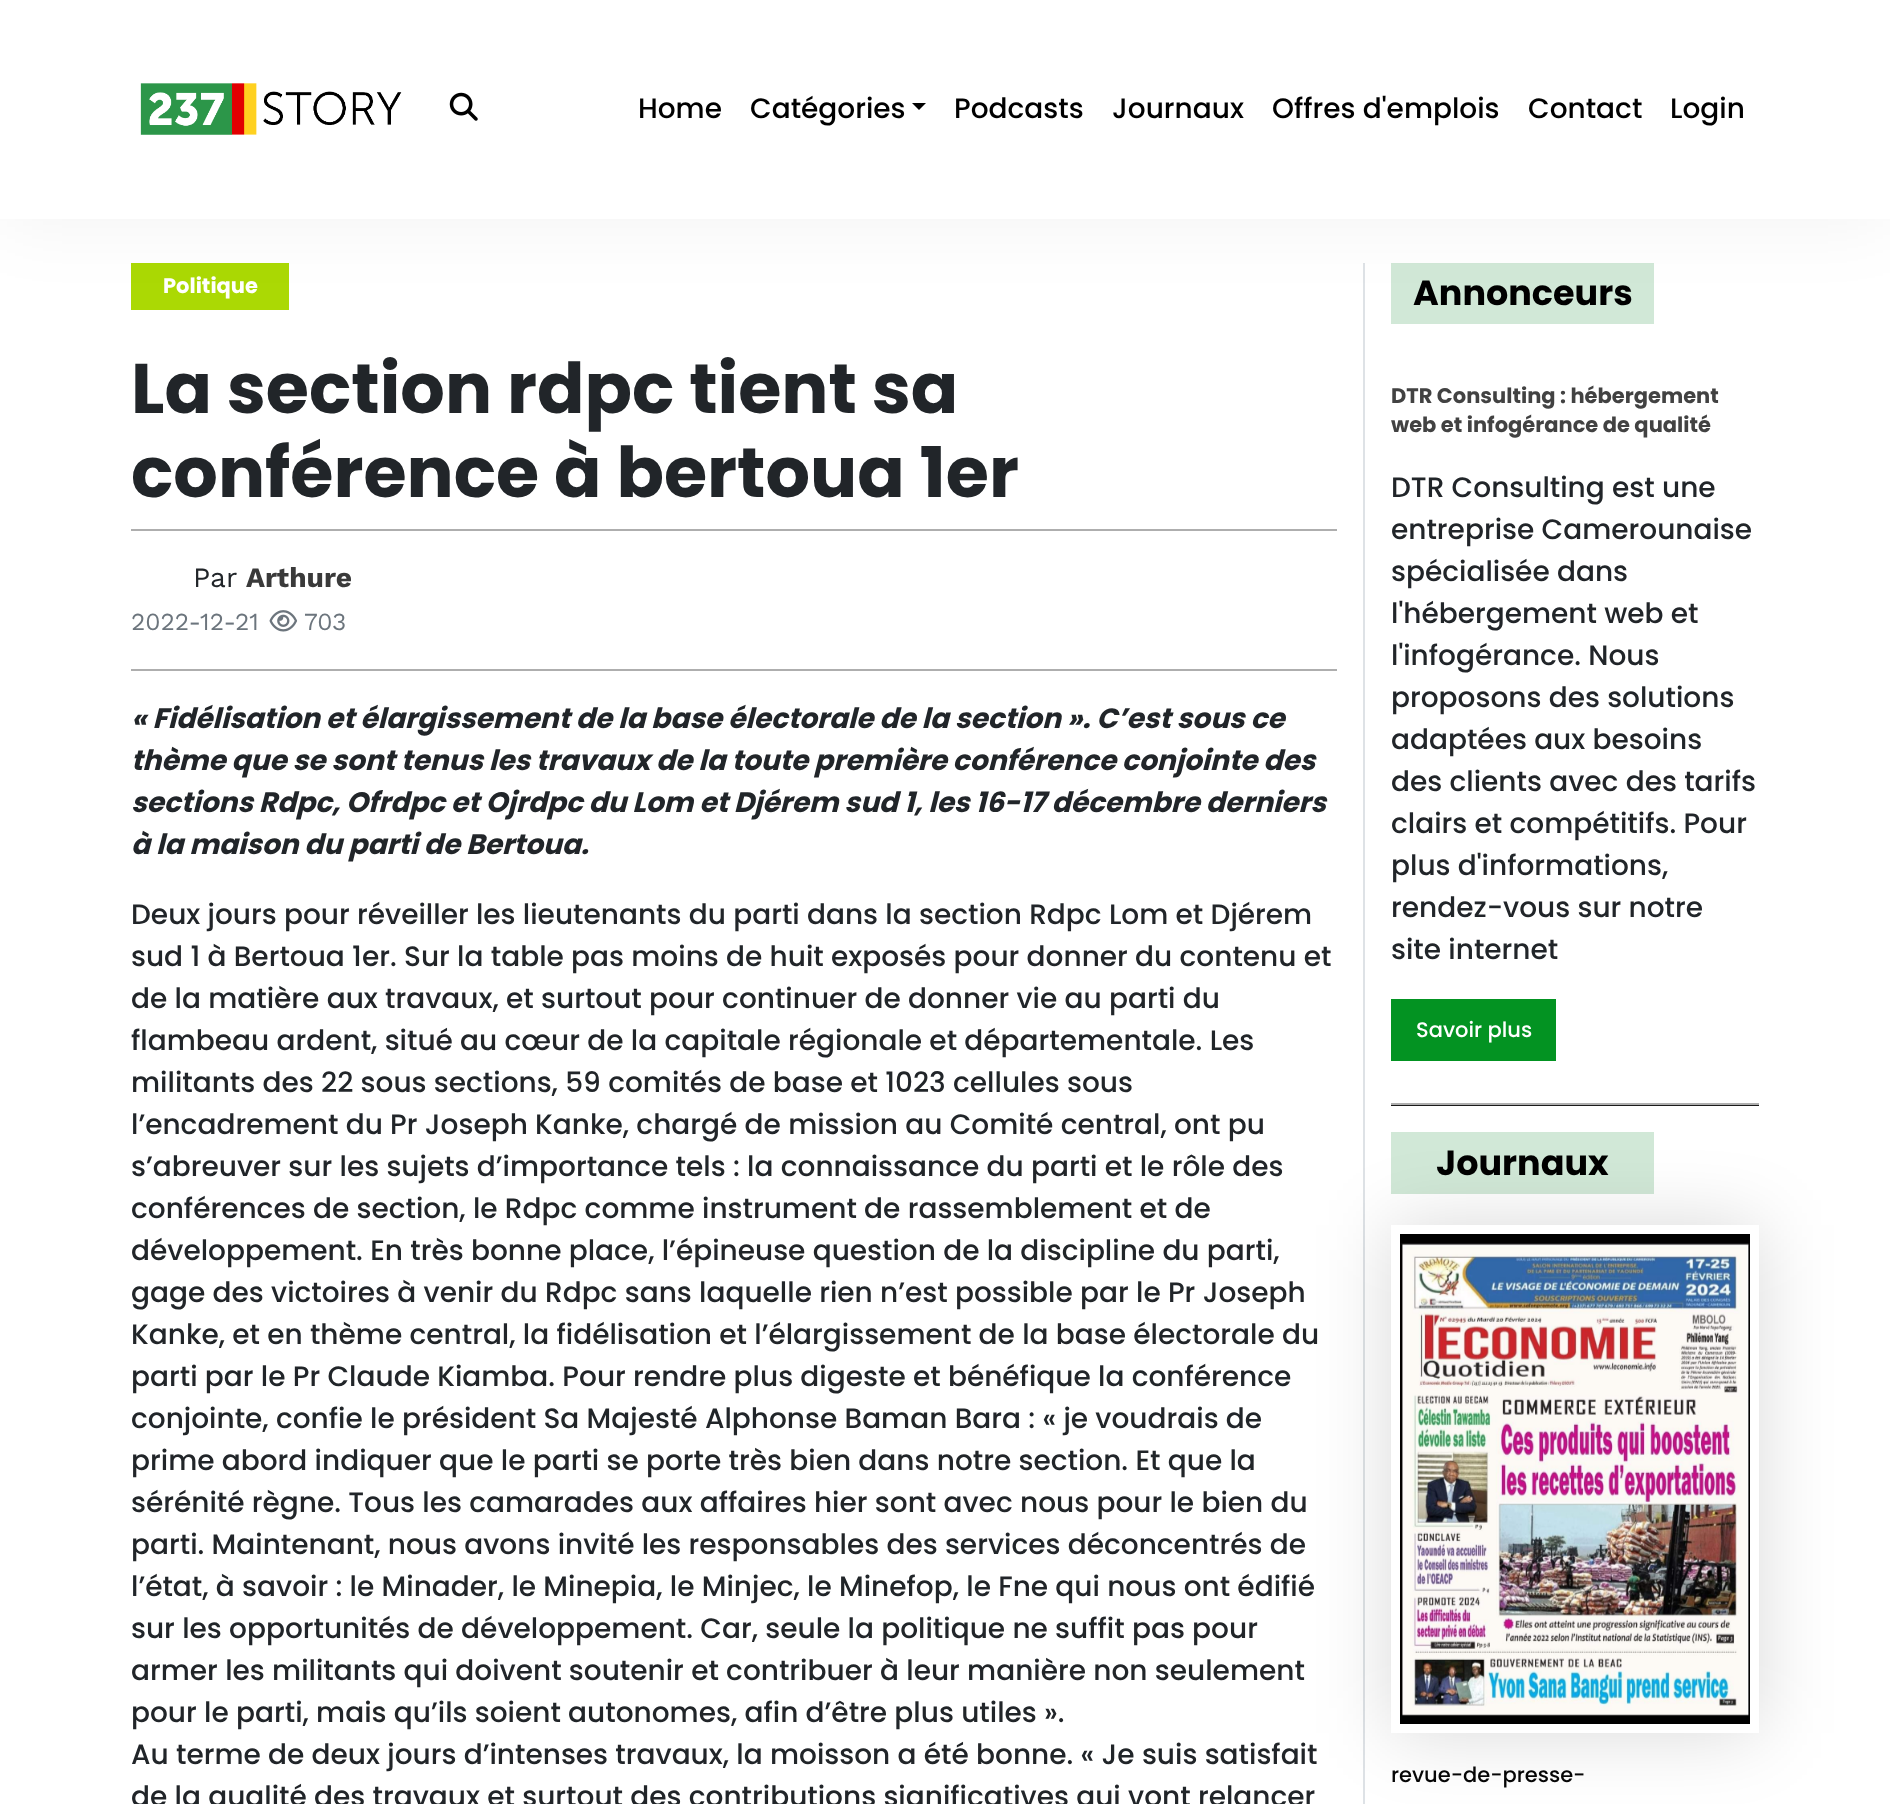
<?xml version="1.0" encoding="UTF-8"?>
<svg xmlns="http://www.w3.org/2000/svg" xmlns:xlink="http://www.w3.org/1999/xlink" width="1890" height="1804">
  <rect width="100%" height="100%" fill="#ffffff" />
  <rect x="1363" y="263" width="2" height="1541" fill="#dee2e6" />
  <rect x="131" y="263" width="158" height="47" fill="#abd904" />
  <rect x="1391" y="263" width="263" height="61" fill="#d1e8d7" />
  <rect y="2" width="1890" height="219" fill="#000000" fill-opacity="0.05" filter="blur(37px)" />
  <rect width="1890" height="219" fill="#ffffff" />
  <image x="140" y="83" width="262" height="52" xlink:href="image1.png" />
  <image x="449" y="92" width="29" height="29" xlink:href="image2.png" />
  <path d="M 912 103 h 14 l -7 7 z" fill="#000000" />
  <rect x="131" y="529" width="1206" height="2" fill="#aeaeae" />
  <rect x="131" y="669" width="1206" height="2" fill="#aeaeae" />
  <image x="269" y="610" width="29" height="22" xlink:href="image3.png" />
  <rect x="1391" y="1105" width="368" height="1" fill="#1a1a1a" />
  <rect x="1391" y="1103" width="368" height="2" fill="#aeaeae" />
  <rect x="1391" y="999" width="165" height="62" fill="#039322" />
  <rect x="1391" y="1132" width="263" height="62" fill="#d1e8d7" />
  <rect x="1391" y="1225" width="368" height="508" fill="#000000" fill-opacity="0.15" filter="blur(37px)" />
  <rect x="1395.5" y="1229.5" width="359" height="499" fill="#000000" stroke="#ffffff" stroke-width="9" />
  <image x="1400" y="1243" width="350" height="473" xlink:href="image4.png" />
  <text x="638" y="118" style="font-family: Poppins; font-size: 28px; font-weight: 500; fill: #000000">Home</text>
  <text x="750" y="118" style="font-family: Poppins; font-size: 28px; font-weight: 500; fill: #000000">Catégories</text>
  <text x="954" y="118" style="font-family: Poppins; font-size: 28px; font-weight: 500; fill: #000000">Podcasts</text>
  <text x="1112" y="118" style="font-family: Poppins; font-size: 28px; font-weight: 500; fill: #000000">Journaux</text>
  <text x="1272" y="118" style="font-family: Poppins; font-size: 28px; font-weight: 500; fill: #000000">Offres d'emplois</text>
  <text x="1528" y="118" style="font-family: Poppins; font-size: 28px; font-weight: 500; fill: #000000">Contact</text>
  <text x="1670" y="118" style="font-family: Poppins; font-size: 28px; font-weight: 500; fill: #000000">Login</text>
  <text x="163" y="293" style="font-family: Poppins; font-size: 21px; font-weight: bold; fill: #ffffff">Politique</text>
  <text x="131" y="413" style="font-family: Poppins; font-size: 70px; font-weight: bold; fill: #212529">La section rdpc tient sa</text>
  <text x="131" y="497" style="font-family: Poppins; font-size: 70px; font-weight: bold; fill: #212529">conférence à bertoua 1er</text>
  <text x="193" y="587" style="font-family: Work Sans; font-size: 28px; fill: #212529">Par</text>
  <text x="246" y="587" style="font-family: Work Sans; font-size: 28px; font-weight: bold; fill: #3a3a3a">Arthure</text>
  <text x="131" y="630" style="font-family: Work Sans; font-size: 24.5px; fill: #6c757d">2022-12-21</text>
  <text x="304" y="630" style="font-family: Work Sans; font-size: 24.5px; fill: #6c757d">703</text>
  <text x="131" y="728" style="font-family: Poppins; font-size: 28px; font-weight: bold; font-style: italic; fill: #212529">« Fidélisation et élargissement de la base électorale de la section ». C’est sous ce</text>
  <text x="131" y="770" style="font-family: Poppins; font-size: 28px; font-weight: bold; font-style: italic; fill: #212529">thème que se sont tenus les travaux de la toute première conférence conjointe des</text>
  <text x="131" y="812" style="font-family: Poppins; font-size: 28px; font-weight: bold; font-style: italic; fill: #212529">sections Rdpc, Ofrdpc et Ojrdpc du Lom et Djérem sud 1, les 16-17 décembre derniers</text>
  <text x="131" y="854" style="font-family: Poppins; font-size: 28px; font-weight: bold; font-style: italic; fill: #212529">à la maison du parti de Bertoua.</text>
  <text x="131" y="924" style="font-family: Poppins; font-size: 28px; font-weight: 500; fill: #212529">Deux jours pour réveiller les lieutenants du parti dans la section Rdpc Lom et Djérem</text>
  <text x="131" y="966" style="font-family: Poppins; font-size: 28px; font-weight: 500; fill: #212529">sud 1 à Bertoua 1er. Sur la table pas moins de huit exposés pour donner du contenu et</text>
  <text x="131" y="1008" style="font-family: Poppins; font-size: 28px; font-weight: 500; fill: #212529">de la matière aux travaux, et surtout pour continuer de donner vie au parti du</text>
  <text x="131" y="1050" style="font-family: Poppins; font-size: 28px; font-weight: 500; fill: #212529">flambeau ardent, situé au cœur de la capitale régionale et départementale. Les</text>
  <text x="131" y="1092" style="font-family: Poppins; font-size: 28px; font-weight: 500; fill: #212529">militants des 22 sous sections, 59 comités de base et 1023 cellules sous</text>
  <text x="131" y="1134" style="font-family: Poppins; font-size: 28px; font-weight: 500; fill: #212529">l’encadrement du Pr Joseph Kanke, chargé de mission au Comité central, ont pu</text>
  <text x="131" y="1176" style="font-family: Poppins; font-size: 28px; font-weight: 500; fill: #212529">s’abreuver sur les sujets d’importance tels : la connaissance du parti et le rôle des</text>
  <text x="131" y="1218" style="font-family: Poppins; font-size: 28px; font-weight: 500; fill: #212529">conférences de section, le Rdpc comme instrument de rassemblement et de</text>
  <text x="131" y="1260" style="font-family: Poppins; font-size: 28px; font-weight: 500; fill: #212529">développement. En très bonne place, l’épineuse question de la discipline du parti,</text>
  <text x="131" y="1302" style="font-family: Poppins; font-size: 28px; font-weight: 500; fill: #212529">gage des victoires à venir du Rdpc sans laquelle rien n’est possible par le Pr Joseph</text>
  <text x="131" y="1344" style="font-family: Poppins; font-size: 28px; font-weight: 500; fill: #212529">Kanke, et en thème central, la fidélisation et l’élargissement de la base électorale du</text>
  <text x="131" y="1386" style="font-family: Poppins; font-size: 28px; font-weight: 500; fill: #212529">parti par le Pr Claude Kiamba. Pour rendre plus digeste et bénéfique la conférence</text>
  <text x="131" y="1428" style="font-family: Poppins; font-size: 28px; font-weight: 500; fill: #212529">conjointe, confie le président Sa Majesté Alphonse Baman Bara : « je voudrais de</text>
  <text x="131" y="1470" style="font-family: Poppins; font-size: 28px; font-weight: 500; fill: #212529">prime abord indiquer que le parti se porte très bien dans notre section. Et que la</text>
  <text x="131" y="1512" style="font-family: Poppins; font-size: 28px; font-weight: 500; fill: #212529">sérénité règne. Tous les camarades aux affaires hier sont avec nous pour le bien du</text>
  <text x="131" y="1554" style="font-family: Poppins; font-size: 28px; font-weight: 500; fill: #212529">parti. Maintenant, nous avons invité les responsables des services déconcentrés de</text>
  <text x="131" y="1596" style="font-family: Poppins; font-size: 28px; font-weight: 500; fill: #212529">l’état, à savoir : le Minader, le Minepia, le Minjec, le Minefop, le Fne qui nous ont édifié</text>
  <text x="131" y="1638" style="font-family: Poppins; font-size: 28px; font-weight: 500; fill: #212529">sur les opportunités de développement. Car, seule la politique ne suffit pas pour</text>
  <text x="131" y="1680" style="font-family: Poppins; font-size: 28px; font-weight: 500; fill: #212529">armer les militants qui doivent soutenir et contribuer à leur manière non seulement</text>
  <text x="131" y="1722" style="font-family: Poppins; font-size: 28px; font-weight: 500; fill: #212529">pour le parti, mais qu’ils soient autonomes, afin d’être plus utiles ».</text>
  <text x="131" y="1764" style="font-family: Poppins; font-size: 28px; font-weight: 500; fill: #212529">Au terme de deux jours d’intenses travaux, la moisson a été bonne. « Je suis satisfait</text>
  <text x="131" y="1806" style="font-family: Poppins; font-size: 28px; font-weight: 500; fill: #212529">de la qualité des travaux et surtout des contributions significatives qui vont relancer</text>
  <text x="1413" y="305" style="font-family: Poppins; font-size: 35px; font-weight: bold; fill: #000000">Annonceurs</text>
  <text x="1391" y="403" style="font-family: Poppins; font-size: 21px; font-weight: bold; fill: #424242">DTR Consulting : hébergement</text>
  <text x="1391" y="432" style="font-family: Poppins; font-size: 21px; font-weight: bold; fill: #424242">web et infogérance de qualité</text>
  <text x="1391" y="497" style="font-family: Poppins; font-size: 28px; font-weight: 500; fill: #212529">DTR Consulting est une</text>
  <text x="1391" y="539" style="font-family: Poppins; font-size: 28px; font-weight: 500; fill: #212529">entreprise Camerounaise</text>
  <text x="1391" y="581" style="font-family: Poppins; font-size: 28px; font-weight: 500; fill: #212529">spécialisée dans</text>
  <text x="1391" y="623" style="font-family: Poppins; font-size: 28px; font-weight: 500; fill: #212529">l'hébergement web et</text>
  <text x="1391" y="665" style="font-family: Poppins; font-size: 28px; font-weight: 500; fill: #212529">l'infogérance. Nous</text>
  <text x="1391" y="707" style="font-family: Poppins; font-size: 28px; font-weight: 500; fill: #212529">proposons des solutions</text>
  <text x="1391" y="749" style="font-family: Poppins; font-size: 28px; font-weight: 500; fill: #212529">adaptées aux besoins</text>
  <text x="1391" y="791" style="font-family: Poppins; font-size: 28px; font-weight: 500; fill: #212529">des clients avec des tarifs</text>
  <text x="1391" y="833" style="font-family: Poppins; font-size: 28px; font-weight: 500; fill: #212529">clairs et compétitifs. Pour</text>
  <text x="1391" y="875" style="font-family: Poppins; font-size: 28px; font-weight: 500; fill: #212529">plus d'informations,</text>
  <text x="1391" y="917" style="font-family: Poppins; font-size: 28px; font-weight: 500; fill: #212529">rendez-vous sur notre</text>
  <text x="1391" y="959" style="font-family: Poppins; font-size: 28px; font-weight: 500; fill: #212529">site internet</text>
  <text x="1416" y="1037" style="font-family: Poppins; font-size: 21px; font-weight: 500; fill: #ffffff">Savoir plus</text>
  <text x="1436" y="1175" style="font-family: Poppins; font-size: 35px; font-weight: bold; fill: #000000">Journaux</text>
  <text x="1391" y="1782" style="font-family: Poppins; font-size: 21px; font-weight: 500; fill: #060606">revue-de-presse-</text>
</svg>
